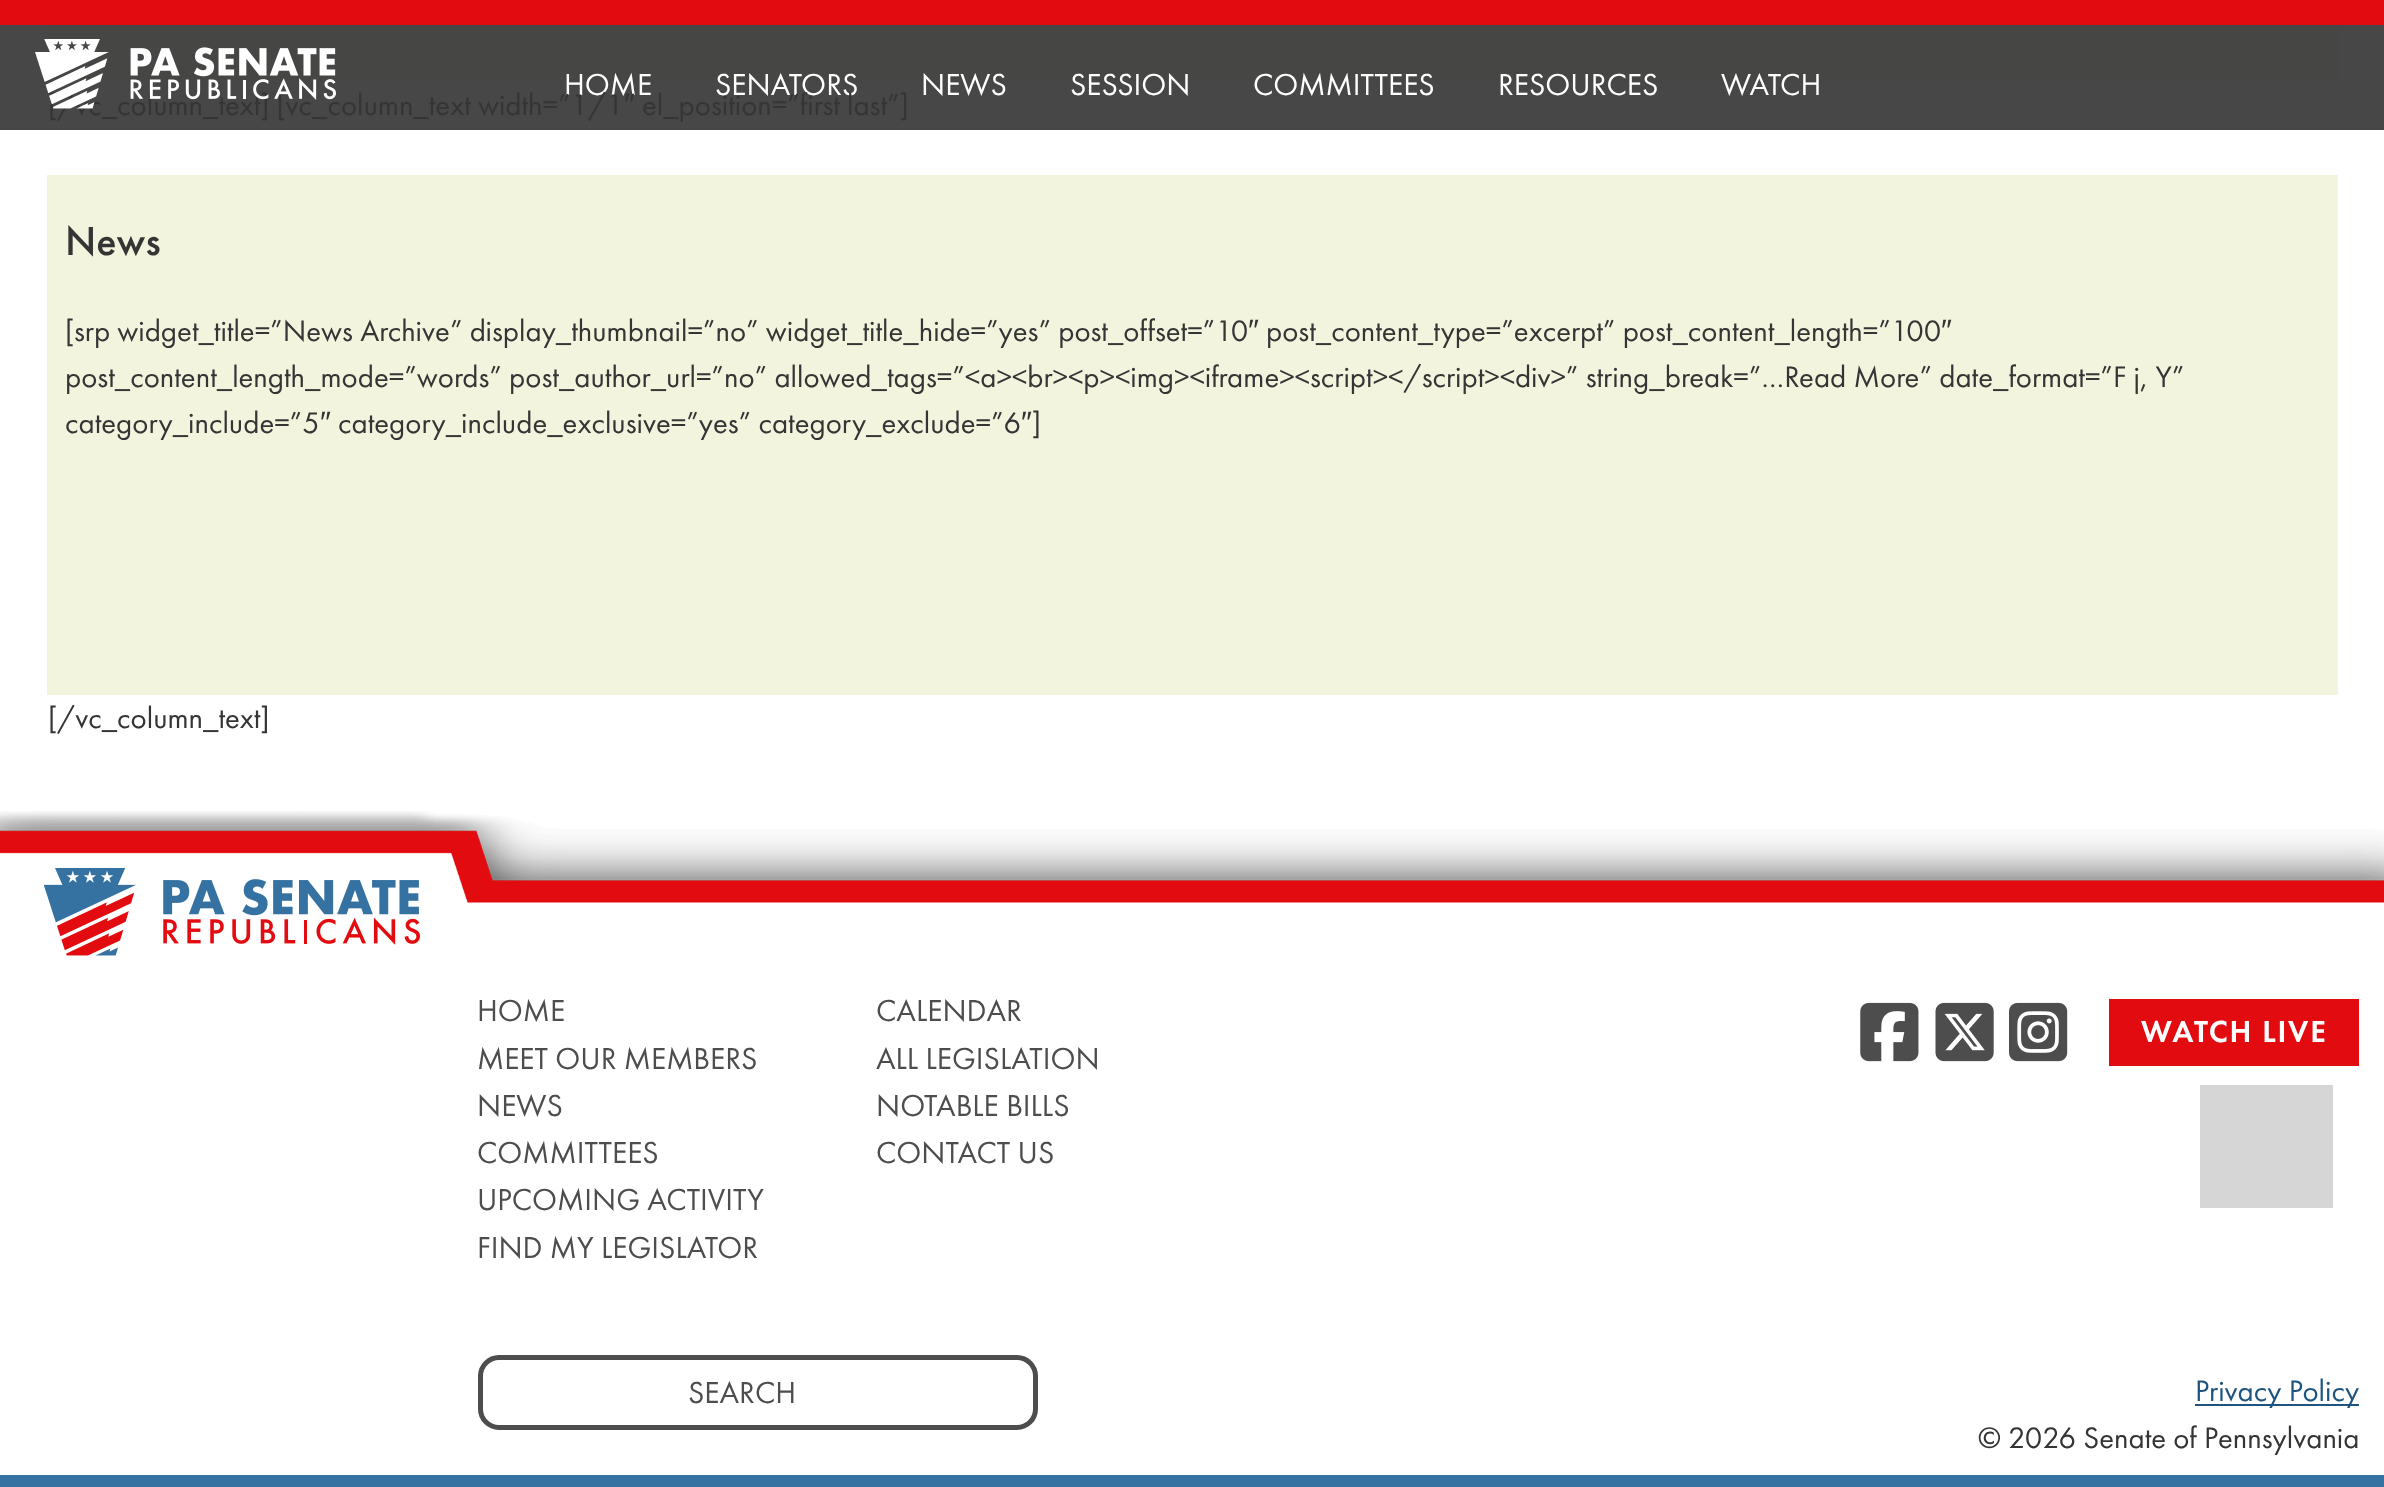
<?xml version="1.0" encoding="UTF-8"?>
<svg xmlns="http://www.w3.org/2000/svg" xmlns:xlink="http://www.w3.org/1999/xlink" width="2384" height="1487">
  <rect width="100%" height="100%" fill="#ffffff" />
  <rect y="25" width="2384" height="105" fill="#474747" />
  <rect width="2384" height="25" fill="#e20c10" />
  <rect x="47" y="25" width="2291" height="57" fill="#464644" />
  <rect x="47" y="175" width="2291" height="520" fill="#f2f4de" />
  <image x="0" y="811" width="2384" height="92" xlink:href="image2.png" />
  <image x="44" y="868" width="376" height="88" xlink:href="image3.png" />
  <rect x="480.5" y="1357.5" width="555" height="70" rx="18.5" fill="none" stroke="#4d4d4d" stroke-width="5" />
  <image x="1860" y="1002" width="59" height="60" xlink:href="image4.png" />
  <image x="1935" y="1002" width="59" height="60" xlink:href="image5.png" />
  <image x="2009" y="1002" width="59" height="60" xlink:href="image6.png" />
  <rect x="2109" y="999" width="250" height="67" fill="#e20c10" />
  <rect x="2195" y="1404" width="164" height="2" fill="#1d5580" />
  <rect x="2200" y="1085" width="133" height="123" fill="#d6d6d6" />
  <rect y="1475" width="2384" height="12" fill="#3672a1" />
  <text x="564" y="95" style="font-family: Futura PT; font-size: 31.5px; fill: #ffffff">HOME</text>
  <text x="715" y="95" style="font-family: Futura PT; font-size: 31.5px; fill: #ffffff">SENATORS</text>
  <text x="921" y="95" style="font-family: Futura PT; font-size: 31.5px; fill: #ffffff">NEWS</text>
  <text x="1070" y="95" style="font-family: Futura PT; font-size: 31.5px; fill: #ffffff">SESSION</text>
  <text x="1253" y="95" style="font-family: Futura PT; font-size: 31.5px; fill: #ffffff">COMMITTEES</text>
  <text x="1498" y="95" style="font-family: Futura PT; font-size: 31.5px; fill: #ffffff">RESOURCES</text>
  <text x="1721" y="95" style="font-family: Futura PT; font-size: 31.5px; fill: #ffffff">WATCH</text>
  <text x="48" y="115" style="font-family: Futura PT; font-size: 30.8px; fill: #353535">[/vc_column_text] [vc_column_text width=”1/1</text>
  <image x="35" y="39" width="301" height="70" xlink:href="image1.png" />
  <text x="624" y="115" style="font-family: Liberation Sans; font-size: 30.8px; fill: #353535">″</text>
  <text x="642" y="115" style="font-family: Futura PT; font-size: 30.8px; fill: #353535">el_position=”first last”]</text>
  <text x="65" y="255" style="font-family: Futura PT; font-size: 42px; font-weight: 500; fill: #353535">News</text>
  <text x="65" y="341" style="font-family: Futura PT; font-size: 30.8px; fill: #353535">[srp widget_title=”News Archive” display_thumbnail=”no” widget_title_hide=”yes” post_offset=”10</text>
  <text x="1248" y="341" style="font-family: Liberation Sans; font-size: 30.8px; fill: #353535">″</text>
  <text x="1266" y="341" style="font-family: Futura PT; font-size: 30.8px; fill: #353535">post_content_type=”excerpt” post_content_length=”100</text>
  <text x="1941" y="341" style="font-family: Liberation Sans; font-size: 30.8px; fill: #353535">″</text>
  <text x="65" y="387" style="font-family: Futura PT; font-size: 30.8px; fill: #353535">post_content_length_mode=”words” post_author_url=”no” allowed_tags=”&lt;a&gt;&lt;br&gt;&lt;p&gt;&lt;img&gt;&lt;iframe&gt;&lt;script&gt;&lt;/script&gt;&lt;div&gt;” string_break=”…Read More” date_format=”F j, Y”</text>
  <text x="65" y="433" style="font-family: Futura PT; font-size: 30.8px; fill: #353535">category_include=”5</text>
  <text x="320" y="433" style="font-family: Liberation Sans; font-size: 30.8px; fill: #353535">″</text>
  <text x="338" y="433" style="font-family: Futura PT; font-size: 30.8px; fill: #353535">category_include_exclusive=”yes” category_exclude=”6</text>
  <text x="1021" y="433" style="font-family: Liberation Sans; font-size: 30.8px; fill: #353535">″</text>
  <text x="1032" y="433" style="font-family: Futura PT; font-size: 30.8px; fill: #353535">]</text>
  <text x="48" y="728" style="font-family: Futura PT; font-size: 30.8px; fill: #353535">[/vc_column_text]</text>
  <text x="477" y="1021" style="font-family: Futura PT; font-size: 31.5px; fill: #4d4d4d">HOME</text>
  <text x="477" y="1069" style="font-family: Futura PT; font-size: 31.5px; fill: #4d4d4d">MEET OUR MEMBERS</text>
  <text x="477" y="1116" style="font-family: Futura PT; font-size: 31.5px; fill: #4d4d4d">NEWS</text>
  <text x="477" y="1163" style="font-family: Futura PT; font-size: 31.5px; fill: #4d4d4d">COMMITTEES</text>
  <text x="477" y="1210" style="font-family: Futura PT; font-size: 31.5px; fill: #4d4d4d">UPCOMING ACTIVITY</text>
  <text x="477" y="1258" style="font-family: Futura PT; font-size: 31.5px; fill: #4d4d4d">FIND MY LEGISLATOR</text>
  <text x="876" y="1021" style="font-family: Futura PT; font-size: 31.5px; fill: #4d4d4d">CALENDAR</text>
  <text x="876" y="1069" style="font-family: Futura PT; font-size: 31.5px; fill: #4d4d4d">ALL LEGISLATION</text>
  <text x="876" y="1116" style="font-family: Futura PT; font-size: 31.5px; fill: #4d4d4d">NOTABLE BILLS</text>
  <text x="876" y="1163" style="font-family: Futura PT; font-size: 31.5px; fill: #4d4d4d">CONTACT US</text>
  <text x="688" y="1403" style="font-family: Futura PT; font-size: 31.5px; fill: #4d4d4d">SEARCH</text>
  <text x="2141" y="1042" style="font-family: 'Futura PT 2'; font-size: 31.5px; font-weight: 500; letter-spacing: 1.75px; fill: #ffffff">WATCH LIVE</text>
  <text x="2195" y="1401" style="font-family: Futura PT; font-size: 30.8px; fill: #1d5580">Privacy Policy</text>
  <text x="1978" y="1448" style="font-family: Futura PT; font-size: 30.8px; fill: #353535">© 2026 Senate of Pennsylvania</text>
</svg>
